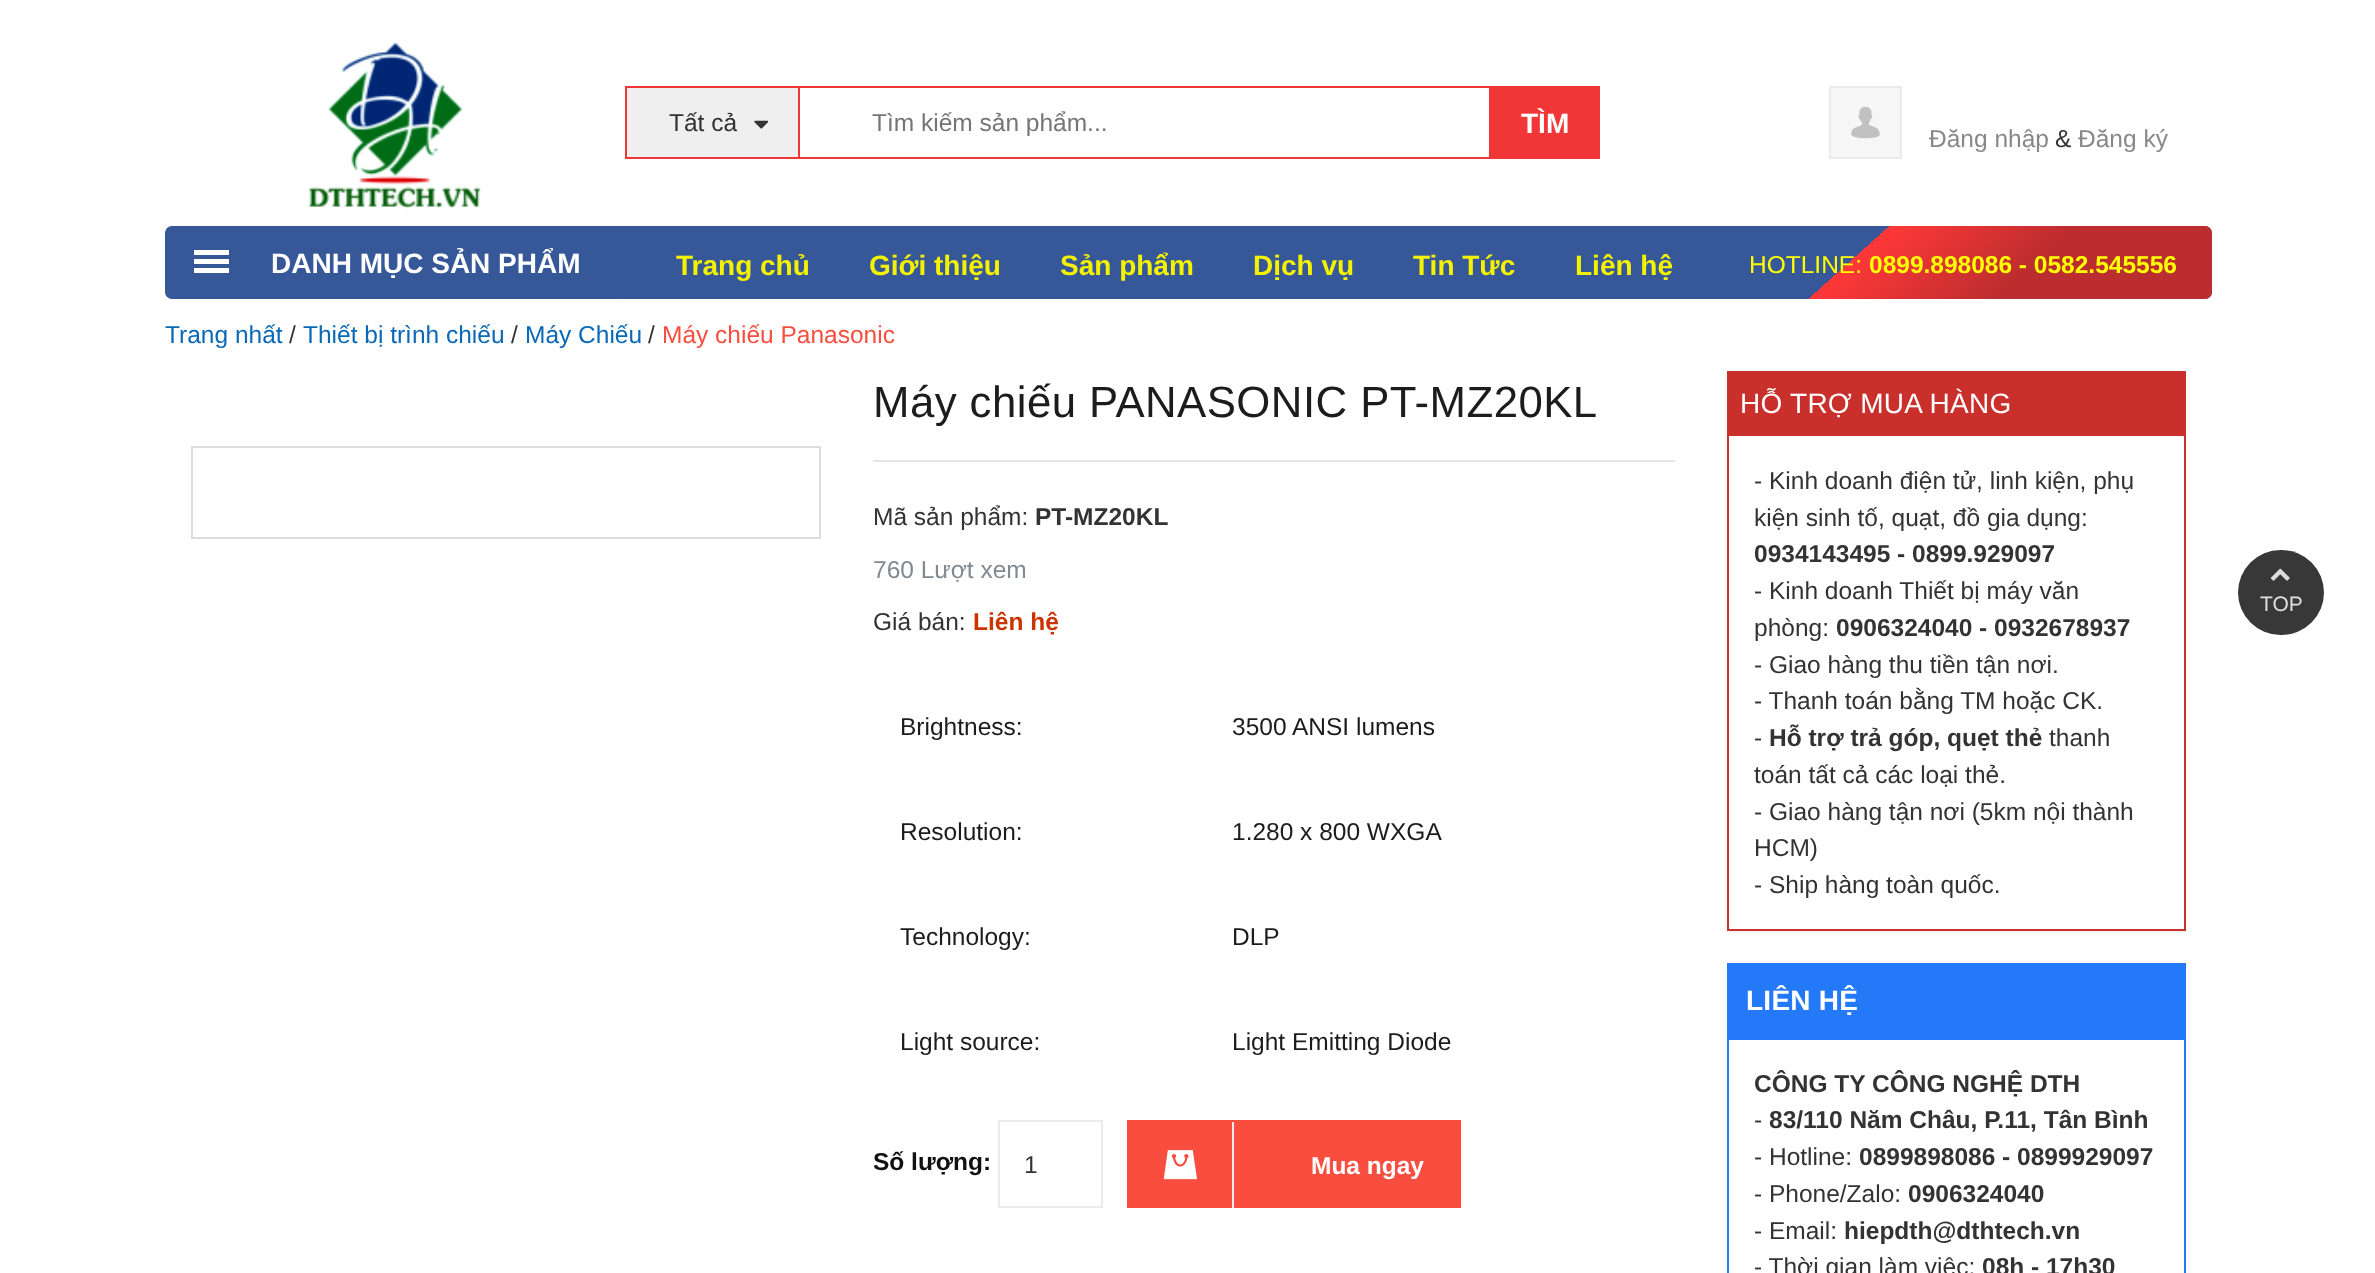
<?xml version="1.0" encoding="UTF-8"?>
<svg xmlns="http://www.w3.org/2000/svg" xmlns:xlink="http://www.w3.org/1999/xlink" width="2375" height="1273">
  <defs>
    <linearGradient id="g1" gradientUnits="userSpaceOnUse" x1="712" y1="-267" x2="1665" y2="792"><stop offset="0" stop-color="#000000" stop-opacity="0" /><stop offset="0.81" stop-color="#ff3838" stop-opacity="0" /><stop offset="0.81" stop-color="#ff3838" /><stop offset="0.9" stop-color="#bb2d2e" /></linearGradient>
  </defs>
  <rect width="100%" height="100%" fill="#ffffff" />
  <image x="309" y="42" width="173" height="167" xlink:href="image1.png" />
  <rect x="678" y="87" width="812" height="71" fill="none" stroke="#f03636" stroke-width="2" />
  <rect x="626" y="87" width="173" height="71" fill="#efefef" stroke="#f03636" stroke-width="2" />
  <image x="754" y="120" width="15" height="9" xlink:href="image2.png" />
  <rect x="1491" y="86" width="109" height="73" fill="#f03636" />
  <rect x="1830" y="87" width="71" height="71" fill="#f6f6f6" stroke="#ebebeb" stroke-width="2" />
  <image x="1851" y="107" width="29" height="32" xlink:href="image3.png" />
  <rect x="165" y="226" width="2047" height="73" rx="7" fill="#365899" />
  <rect x="165" y="226" width="2047" height="73" rx="7" fill="url(#g1)" />
  <rect x="166" y="227" width="456" height="71" rx="8" fill="none" stroke="#365899" stroke-width="2" />
  <rect x="194" y="250" width="35" height="5" fill="#ffffff" />
  <rect x="194" y="259" width="35" height="5" fill="#ffffff" />
  <rect x="194" y="268" width="35" height="5" fill="#ffffff" />
  <rect x="192" y="447" width="628" height="91" fill="none" stroke="#dddddd" stroke-width="2" />
  <rect x="873" y="460" width="802" height="2" fill="#e6e6e6" />
  <rect x="999" y="1121" width="103" height="86" fill="none" stroke="#ebebeb" stroke-width="2" />
  <rect x="1127" y="1120" width="334" height="88" fill="#f94e3f" />
  <rect x="1232" y="1122" width="2" height="86" fill="#ebebeb" />
  <image x="1163" y="1150" width="34" height="30" xlink:href="image4.png" />
  <rect x="1727" y="373" width="459" height="560" fill="#000000" fill-opacity="0.05" filter="blur(1px)" />
  <rect x="1729" y="436" width="455" height="493" fill="#ffffff" />
  <rect x="1728" y="372" width="457" height="558" fill="none" stroke="#c9302c" stroke-width="2" />
  <rect x="1729" y="373" width="455" height="63" fill="#c9302c" />
  <rect x="1728" y="964" width="457" height="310" fill="none" stroke="#2479f9" stroke-width="2" />
  <rect x="1729" y="965" width="455" height="75" fill="#2479f9" />
  <rect x="2238" y="550" width="86" height="85" rx="42.5" fill="#383838" />
  <image x="2270" y="568" width="20" height="13" xlink:href="image5.png" />
  <text x="669" y="131" style="font-family: Liberation Sans; font-size: 24.5px; fill: #333333">Tất cả</text>
  <text x="872" y="131" style="font-family: Liberation Sans; font-size: 24.5px; fill: #757575">Tìm kiếm sản phẩm...</text>
  <text x="1521" y="133" style="font-family: Liberation Sans; font-size: 28px; font-weight: bold; fill: #ffffff">TÌM</text>
  <text x="1929" y="147" style="font-family: Liberation Sans; font-size: 24.5px; fill: #888888">Đăng nhập</text>
  <text x="2055" y="147" style="font-family: Liberation Sans; font-size: 24.5px; fill: #333333">&amp;</text>
  <text x="2078" y="147" style="font-family: Liberation Sans; font-size: 24.5px; fill: #888888">Đăng ký</text>
  <text x="271" y="273" style="font-family: Liberation Sans; font-size: 28px; font-weight: bold; fill: #ffffff">DANH MỤC SẢN PHẨM</text>
  <text x="676" y="275" style="font-family: Liberation Sans; font-size: 28px; font-weight: bold; fill: #f5f200">Trang chủ</text>
  <text x="869" y="275" style="font-family: Liberation Sans; font-size: 28px; font-weight: bold; fill: #f5f200">Giới thiệu</text>
  <text x="1060" y="275" style="font-family: Liberation Sans; font-size: 28px; font-weight: bold; fill: #f5f200">Sản phẩm</text>
  <text x="1253" y="275" style="font-family: Liberation Sans; font-size: 28px; font-weight: bold; fill: #f5f200">Dịch vụ</text>
  <text x="1413" y="275" style="font-family: Liberation Sans; font-size: 28px; font-weight: bold; fill: #f5f200">Tin Tức</text>
  <text x="1575" y="275" style="font-family: Liberation Sans; font-size: 28px; font-weight: bold; fill: #f5f200">Liên hệ</text>
  <text x="1749" y="273" style="font-family: Liberation Sans; font-size: 24.5px; fill: #ffff01">HOTLINE:</text>
  <text x="1869" y="273" style="font-family: Liberation Sans; font-size: 24.5px; font-weight: bold; fill: #ffff01">0899.898086 - 0582.545556</text>
  <text x="165" y="343" style="font-family: Liberation Sans; font-size: 24.5px; fill: #0968b7">Trang nhất</text>
  <text x="289" y="343" style="font-family: Liberation Sans; font-size: 24.5px; fill: #333333">/</text>
  <text x="303" y="343" style="font-family: Liberation Sans; font-size: 24.5px; fill: #0968b7">Thiết bị trình chiếu</text>
  <text x="511" y="343" style="font-family: Liberation Sans; font-size: 24.5px; fill: #333333">/</text>
  <text x="525" y="343" style="font-family: Liberation Sans; font-size: 24.5px; fill: #0968b7">Máy Chiếu</text>
  <text x="648" y="343" style="font-family: Liberation Sans; font-size: 24.5px; fill: #333333">/</text>
  <text x="662" y="343" style="font-family: Liberation Sans; font-size: 24.5px; fill: #f94e3f">Máy chiếu Panasonic</text>
  <text x="873" y="417" style="font-family: Liberation Sans; font-size: 43.75px; letter-spacing: 0.45px; fill: #1c1c1c">Máy chiếu PANASONIC PT-MZ20KL</text>
  <text x="873" y="525" style="font-family: Liberation Sans; font-size: 24.5px; fill: #333333">Mã sản phẩm:</text>
  <text x="1035" y="525" style="font-family: Liberation Sans; font-size: 24.5px; font-weight: bold; fill: #333333">PT-MZ20KL</text>
  <text x="873" y="578" style="font-family: Liberation Sans; font-size: 24.5px; fill: #818a91">760 Lượt xem</text>
  <text x="873" y="630" style="font-family: Liberation Sans; font-size: 24.5px; fill: #333333">Giá bán:</text>
  <text x="973" y="630" style="font-family: Liberation Sans; font-size: 24.5px; font-weight: bold; fill: #cc3300">Liên hệ</text>
  <text x="900" y="735" style="font-family: Liberation Sans; font-size: 24.5px; fill: #1c1c1c">Brightness:</text>
  <text x="1232" y="735" style="font-family: Liberation Sans; font-size: 24.5px; fill: #1c1c1c">3500 ANSI lumens</text>
  <text x="900" y="840" style="font-family: Liberation Sans; font-size: 24.5px; fill: #1c1c1c">Resolution:</text>
  <text x="1232" y="840" style="font-family: Liberation Sans; font-size: 24.5px; fill: #1c1c1c">1.280 x 800 WXGA</text>
  <text x="900" y="945" style="font-family: Liberation Sans; font-size: 24.5px; fill: #1c1c1c">Technology:</text>
  <text x="1232" y="945" style="font-family: Liberation Sans; font-size: 24.5px; fill: #1c1c1c">DLP</text>
  <text x="900" y="1050" style="font-family: Liberation Sans; font-size: 24.5px; fill: #1c1c1c">Light source:</text>
  <text x="1232" y="1050" style="font-family: Liberation Sans; font-size: 24.5px; fill: #1c1c1c">Light Emitting Diode</text>
  <text x="873" y="1170" style="font-family: Liberation Sans; font-size: 24.5px; font-weight: bold; fill: #111111">Số lượng:</text>
  <text x="1024" y="1173" style="font-family: Liberation Sans; font-size: 24.5px; fill: #333333">1</text>
  <text x="1311" y="1174" style="font-family: Liberation Sans; font-size: 24.5px; font-weight: bold; fill: #ffffff">Mua ngay</text>
  <text x="1740" y="413" style="font-family: Liberation Sans; font-size: 28px; letter-spacing: 0.25px; fill: #ffffff">HỖ TRỢ MUA HÀNG</text>
  <text x="1754" y="489" style="font-family: Liberation Sans; font-size: 24.5px; fill: #333333">- Kinh doanh điện tử, linh kiện, phụ</text>
  <text x="1754" y="526" style="font-family: Liberation Sans; font-size: 24.5px; fill: #333333">kiện sinh tố, quạt, đồ gia dụng:</text>
  <text x="1754" y="562" style="font-family: Liberation Sans; font-size: 24.5px; font-weight: bold; fill: #333333">0934143495 - 0899.929097</text>
  <text x="1754" y="599" style="font-family: Liberation Sans; font-size: 24.5px; fill: #333333">- Kinh doanh Thiết bị máy văn</text>
  <text x="1754" y="636" style="font-family: Liberation Sans; font-size: 24.5px; fill: #333333">phòng:</text>
  <text x="1836" y="636" style="font-family: Liberation Sans; font-size: 24.5px; font-weight: bold; fill: #333333">0906324040 - 0932678937</text>
  <text x="1754" y="673" style="font-family: Liberation Sans; font-size: 24.5px; fill: #333333">- Giao hàng thu tiền tận nơi.</text>
  <text x="1754" y="709" style="font-family: Liberation Sans; font-size: 24.5px; fill: #333333">- Thanh toán bằng TM hoặc CK.</text>
  <text x="1754" y="746" style="font-family: Liberation Sans; font-size: 24.5px; fill: #333333">-</text>
  <text x="1769" y="746" style="font-family: Liberation Sans; font-size: 24.5px; font-weight: bold; fill: #333333">Hỗ trợ trả góp, quẹt thẻ</text>
  <text x="2049" y="746" style="font-family: Liberation Sans; font-size: 24.5px; fill: #333333">thanh</text>
  <text x="1754" y="783" style="font-family: Liberation Sans; font-size: 24.5px; fill: #333333">toán tất cả các loại thẻ.</text>
  <text x="1754" y="820" style="font-family: Liberation Sans; font-size: 24.5px; fill: #333333">- Giao hàng tận nơi (5km nội thành</text>
  <text x="1754" y="856" style="font-family: Liberation Sans; font-size: 24.5px; fill: #333333">HCM)</text>
  <text x="1754" y="893" style="font-family: Liberation Sans; font-size: 24.5px; fill: #333333">- Ship hàng toàn quốc.</text>
  <text x="1746" y="1010" style="font-family: Liberation Sans; font-size: 28px; font-weight: bold; letter-spacing: 0.25px; fill: #ffffff">LIÊN HỆ</text>
  <text x="1754" y="1092" style="font-family: Liberation Sans; font-size: 24.5px; font-weight: bold; fill: #333333">CÔNG TY CÔNG NGHỆ DTH</text>
  <text x="1754" y="1128" style="font-family: Liberation Sans; font-size: 24.5px; fill: #333333">-</text>
  <text x="1769" y="1128" style="font-family: Liberation Sans; font-size: 24.5px; font-weight: bold; fill: #333333">83/110 Năm Châu, P.11, Tân Bình</text>
  <text x="1754" y="1165" style="font-family: Liberation Sans; font-size: 24.5px; fill: #333333">- Hotline:</text>
  <text x="1859" y="1165" style="font-family: Liberation Sans; font-size: 24.5px; font-weight: bold; fill: #333333">0899898086 - 0899929097</text>
  <text x="1754" y="1202" style="font-family: Liberation Sans; font-size: 24.5px; fill: #333333">- Phone/Zalo:</text>
  <text x="1908" y="1202" style="font-family: Liberation Sans; font-size: 24.5px; font-weight: bold; fill: #333333">0906324040</text>
  <text x="1754" y="1239" style="font-family: Liberation Sans; font-size: 24.5px; fill: #333333">- Email:</text>
  <text x="1844" y="1239" style="font-family: Liberation Sans; font-size: 24.5px; font-weight: bold; fill: #333333">hiepdth@dthtech.vn</text>
  <text x="1754" y="1275" style="font-family: Liberation Sans; font-size: 24.5px; fill: #333333">- Thời gian làm việc:</text>
  <text x="1982" y="1275" style="font-family: Liberation Sans; font-size: 24.5px; font-weight: bold; fill: #333333">08h - 17h30</text>
  <text x="2260" y="611" style="font-family: Liberation Sans; font-size: 21px; fill: #dcdcdc">TOP</text>
</svg>
